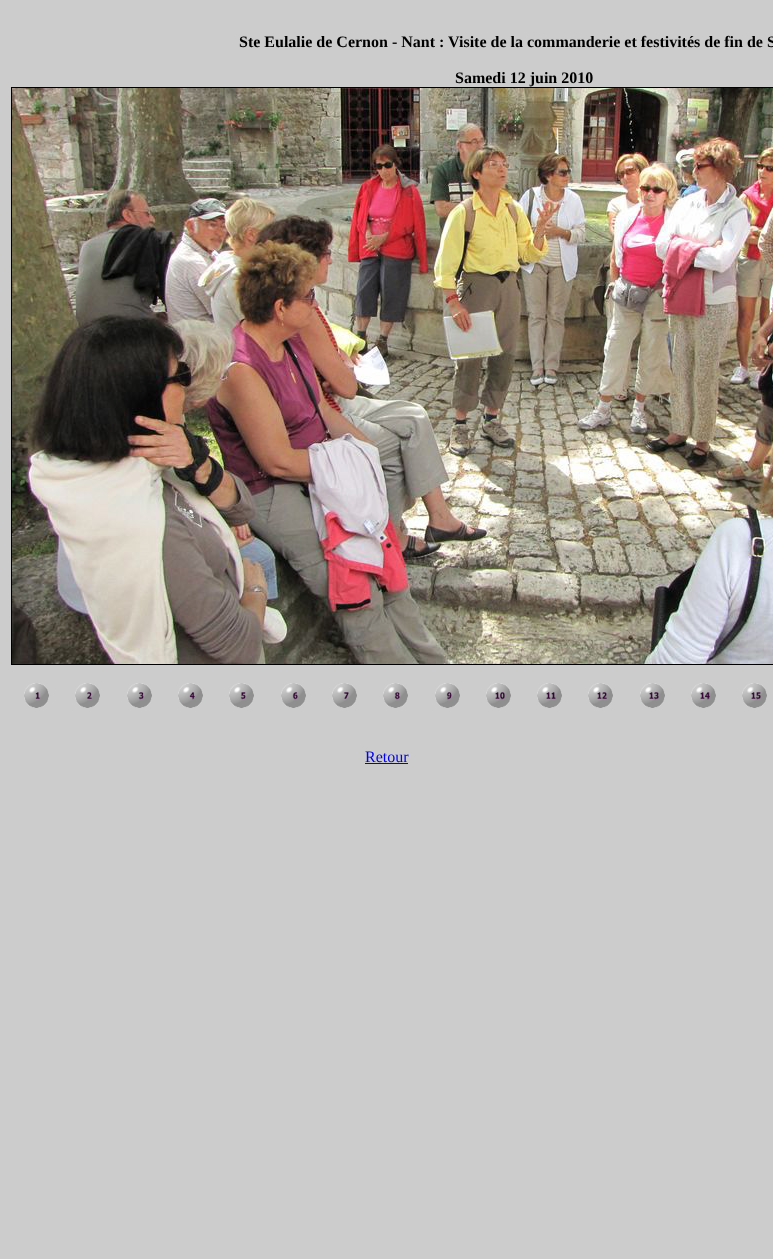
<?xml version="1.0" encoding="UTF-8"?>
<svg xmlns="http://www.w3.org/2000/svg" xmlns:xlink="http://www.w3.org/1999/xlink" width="773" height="1259">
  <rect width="100%" height="100%" fill="#cccccc" />
  <rect x="11.5" y="87.5" width="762" height="577" fill="none" stroke="#000000" />
  <image x="12" y="88" width="761" height="576" xlink:href="image1.png" />
  <image x="24" y="683" width="25" height="25" xlink:href="image2.png" />
  <image x="75" y="683" width="25" height="25" xlink:href="image3.png" />
  <image x="127" y="683" width="25" height="25" xlink:href="image4.png" />
  <image x="178" y="683" width="25" height="25" xlink:href="image5.png" />
  <image x="229" y="683" width="25" height="25" xlink:href="image6.png" />
  <image x="281" y="683" width="25" height="25" xlink:href="image7.png" />
  <image x="332" y="683" width="25" height="25" xlink:href="image8.png" />
  <image x="383" y="683" width="25" height="25" xlink:href="image9.png" />
  <image x="435" y="683" width="25" height="25" xlink:href="image10.png" />
  <image x="486" y="683" width="25" height="25" xlink:href="image11.png" />
  <image x="537" y="683" width="25" height="25" xlink:href="image12.png" />
  <image x="588" y="683" width="25" height="25" xlink:href="image13.png" />
  <image x="640" y="683" width="25" height="25" xlink:href="image14.png" />
  <image x="691" y="683" width="25" height="25" xlink:href="image15.png" />
  <image x="742" y="683" width="25" height="25" xlink:href="image16.png" />
  <rect x="365" y="763" width="43" height="1" fill="#0000ee" />
  <text x="239" y="47" style="font-family: Liberation Serif; font-size: 16px; font-weight: bold; fill: #000000">Ste Eulalie de Cernon - Nant : Visite de la commanderie et festivités de fin de S</text>
  <text x="455" y="83" style="font-family: Liberation Serif; font-size: 16px; font-weight: bold; fill: #000000">Samedi 12 juin 2010</text>
  <text x="365" y="762" style="font-family: Liberation Serif; font-size: 16px; fill: #0000ee">Retour</text>
</svg>
